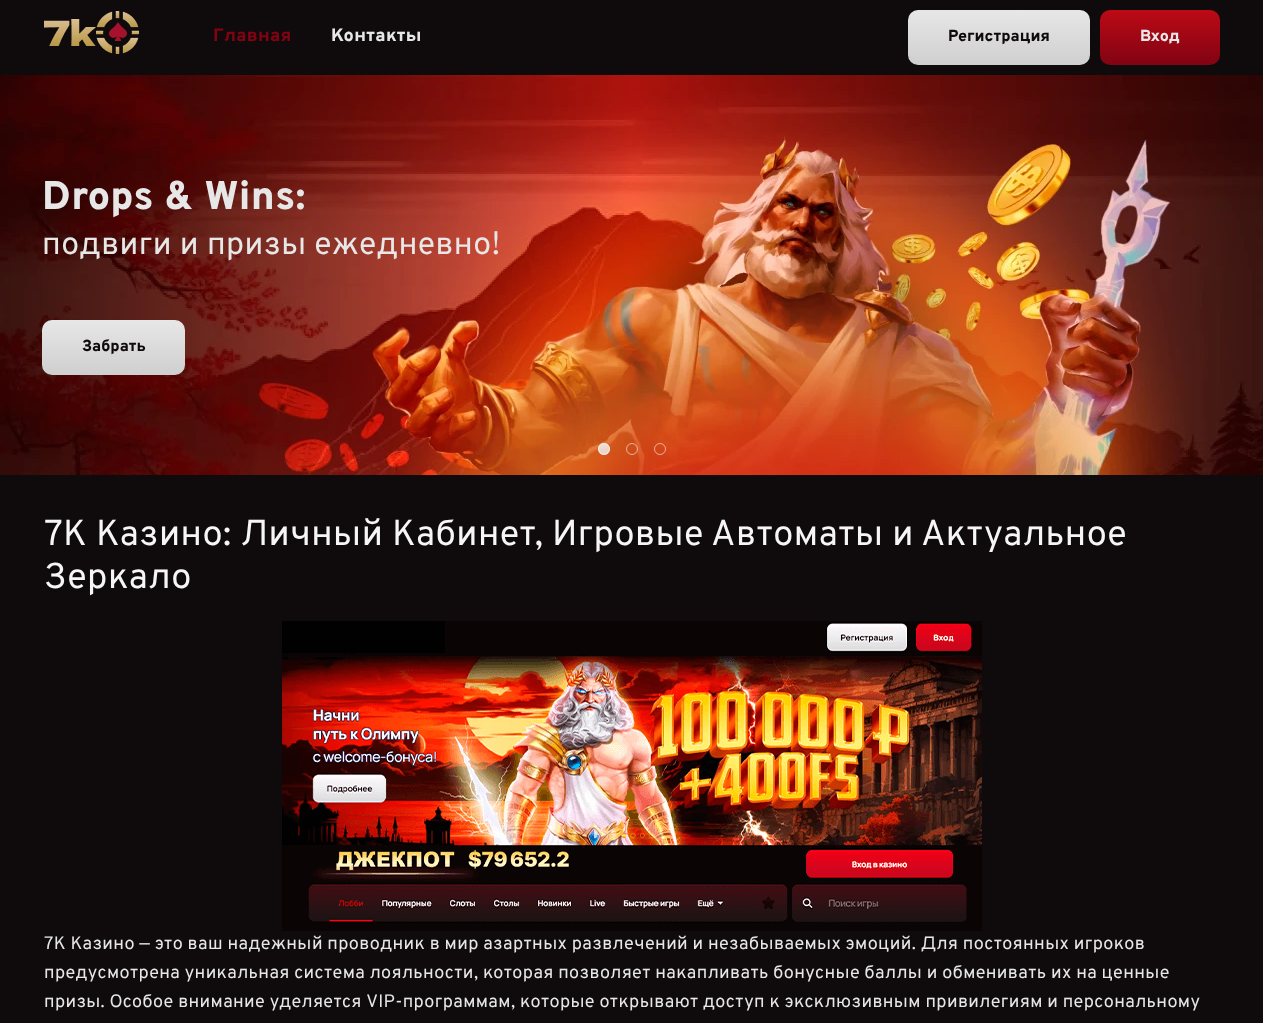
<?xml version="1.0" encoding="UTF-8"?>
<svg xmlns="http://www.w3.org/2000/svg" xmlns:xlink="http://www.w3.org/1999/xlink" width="1263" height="1023">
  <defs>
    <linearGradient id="g1" gradientUnits="userSpaceOnUse" x1="999" y1="10" x2="999" y2="65"><stop offset="0" stop-color="#e7e7e7" /><stop offset="1" stop-color="#cfcfcf" /></linearGradient>
    <linearGradient id="g2" gradientUnits="userSpaceOnUse" x1="1160" y1="10" x2="1160" y2="65"><stop offset="0" stop-color="#bc0a15" /><stop offset="1" stop-color="#810313" /></linearGradient>
    <linearGradient id="g3" gradientUnits="userSpaceOnUse" x1="114" y1="320" x2="114" y2="375"><stop offset="0" stop-color="#e7e7e7" /><stop offset="1" stop-color="#cfcfcf" /></linearGradient>
  </defs>
  <rect width="100%" height="100%" fill="#0f0b0c" />
  <image x="44" y="11" width="95" height="43" xlink:href="image1.png" />
  <rect x="908" y="10" width="182" height="55" rx="10" fill="url(#g1)" />
  <rect x="1100" y="10" width="120" height="55" rx="10" fill="url(#g2)" />
  <image x="0" y="75" width="1263" height="400" xlink:href="image2.png" />
  <rect x="42" y="320" width="143" height="55" rx="10" fill="url(#g3)" />
  <circle cx="604" cy="449" r="6" fill="#f5f5f5" fill-opacity="0.8" />
  <circle cx="604" cy="449" r="5.5" fill="none" stroke="#f5f5f5" stroke-opacity="0.8" />
  <circle cx="632" cy="449" r="5.5" fill="none" stroke="#f5f5f5" stroke-opacity="0.6" />
  <circle cx="660" cy="449" r="5.5" fill="none" stroke="#f5f5f5" stroke-opacity="0.6" />
  <image x="282" y="621" width="700" height="310" xlink:href="image3.png" />
  <text x="213" y="41" style="font-family: Overpass; font-size: 18px; font-weight: 800; letter-spacing: 0.35px; fill: #810313">Главная</text>
  <text x="331" y="41" style="font-family: Overpass; font-size: 18px; font-weight: 800; letter-spacing: 0.35px; fill: #e7e7e7">Контакты</text>
  <text x="948" y="41" style="font-family: Overpass; font-size: 16px; font-weight: 800; fill: #0f0b0c">Регистрация</text>
  <text x="1140" y="41" style="font-family: Overpass; font-size: 16px; font-weight: 800; fill: #e7e7e7">Вход</text>
  <text x="42" y="209" style="font-family: Overpass; font-size: 40px; font-weight: 800; letter-spacing: 0.35px; fill: #e7e7e7">Drops &amp; Wins:</text>
  <text x="42" y="254" style="font-family: Overpass; font-size: 32px; letter-spacing: 0.35px; fill: #e7e7e7">подвиги и призы ежедневно!</text>
  <text x="82" y="351" style="font-family: Overpass; font-size: 16px; font-weight: 800; fill: #0f0b0c">Забрать</text>
  <text x="44" y="545" style="font-family: Overpass; font-size: 36px; letter-spacing: 0.35px; fill: #f6f6f6">7К Казино: Личный Кабинет, Игровые Автоматы и Актуальное</text>
  <text x="44" y="588" style="font-family: Overpass; font-size: 36px; letter-spacing: 0.35px; fill: #f6f6f6">Зеркало</text>
  <text x="44" y="949" style="font-family: Overpass; font-size: 18px; letter-spacing: 0.32px; fill: #e7e7e7">7К Казино — это ваш надежный проводник в мир азартных развлечений и незабываемых эмоций. Для постоянных игроков</text>
  <text x="44" y="978" style="font-family: Overpass; font-size: 18px; letter-spacing: 0.32px; fill: #e7e7e7">предусмотрена уникальная система лояльности, которая позволяет накапливать бонусные баллы и обменивать их на ценные</text>
  <text x="44" y="1007" style="font-family: Overpass; font-size: 18px; letter-spacing: 0.32px; fill: #e7e7e7">призы. Особое внимание уделяется VIP-программам, которые открывают доступ к эксклюзивным привилегиям и персональному</text>
</svg>
